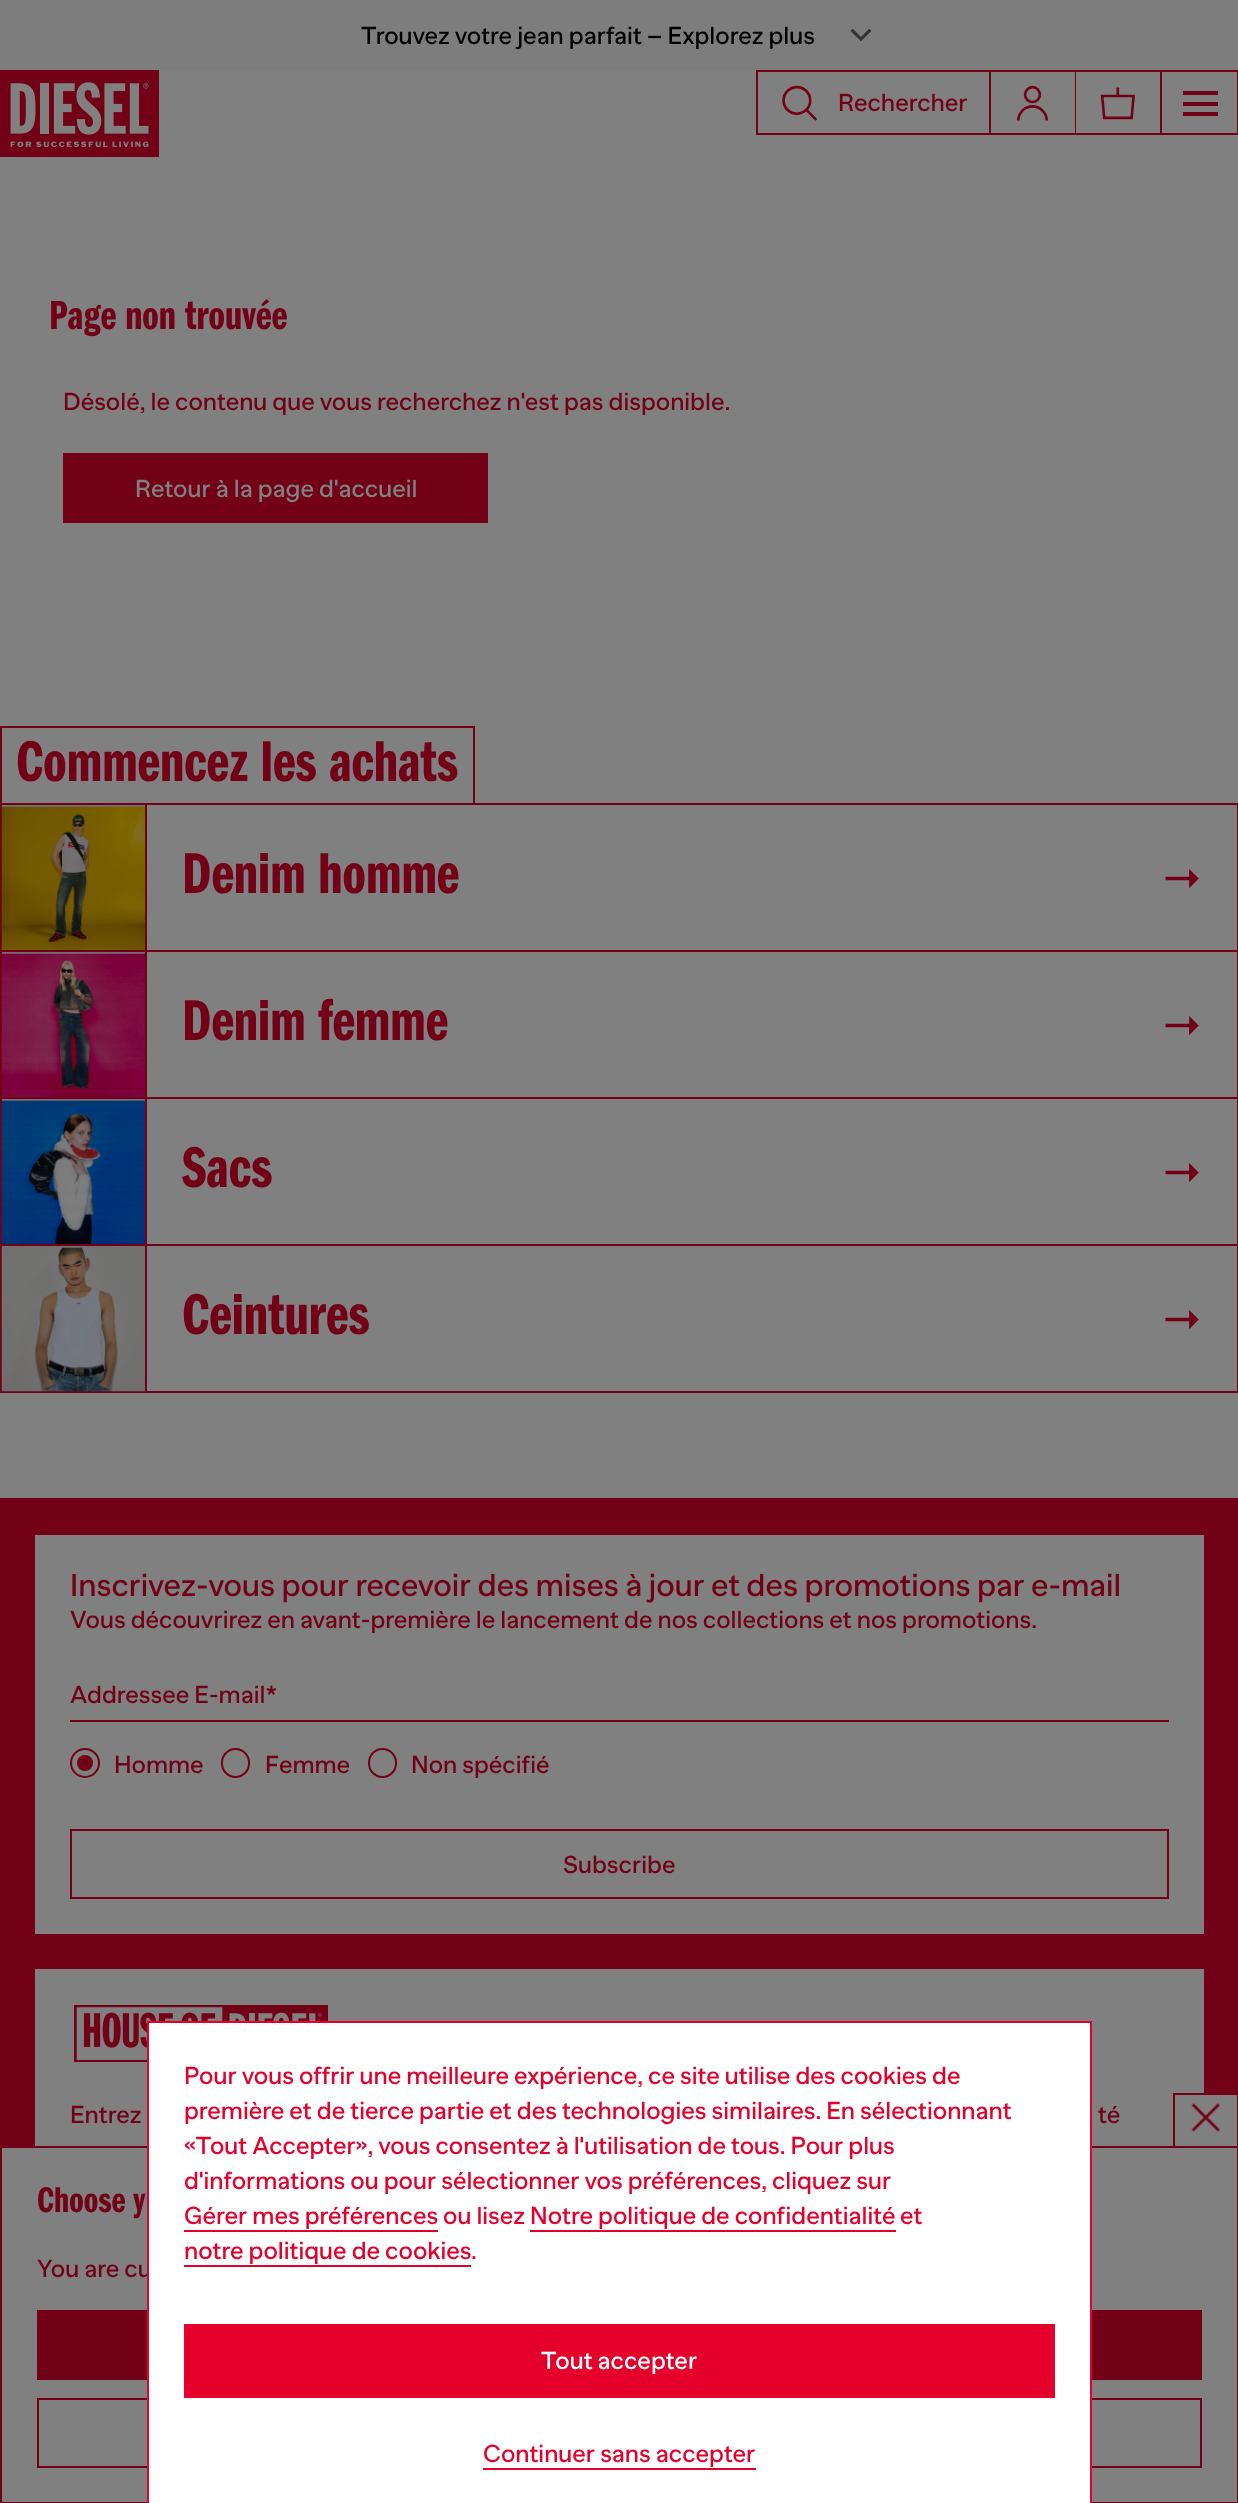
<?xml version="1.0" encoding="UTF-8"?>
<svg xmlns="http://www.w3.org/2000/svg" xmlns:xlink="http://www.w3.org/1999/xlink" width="1238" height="2503">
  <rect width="100%" height="100%" fill="#808080" />
  <rect width="1238" height="70" fill="#7d7d7d" />
  <image x="850" y="28" width="22" height="14" xlink:href="image1.png" />
  <image x="0" y="70" width="159" height="87" xlink:href="image2.png" />
  <rect x="756" y="70" width="2" height="65" fill="#720016" />
  <rect x="758" y="70" width="231" height="2" fill="#720016" />
  <rect x="758" y="133" width="231" height="2" fill="#720016" />
  <image x="782" y="85" width="35" height="36" xlink:href="image3.png" />
  <rect x="989" y="70" width="2" height="65" fill="#720016" />
  <rect x="991" y="70" width="84" height="2" fill="#720016" />
  <rect x="991" y="133" width="84" height="2" fill="#720016" />
  <image x="1017" y="85" width="31" height="36" xlink:href="image4.png" />
  <rect x="1075" y="70" width="1" height="65" fill="#720016" />
  <rect x="1076" y="70" width="84" height="2" fill="#720016" />
  <rect x="1076" y="133" width="84" height="2" fill="#720016" />
  <image x="1100" y="87" width="35" height="33" xlink:href="image5.png" />
  <rect x="1161" y="71" width="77" height="63" fill="none" stroke="#720016" stroke-width="2" />
  <rect x="1183" y="91" width="35" height="4" fill="#720016" />
  <rect x="1183" y="102" width="35" height="4" fill="#720016" />
  <rect x="1183" y="112" width="35" height="4" fill="#720016" />
  <rect x="63" y="453" width="425" height="70" fill="#720016" />
  <rect y="726" width="474" height="2" fill="#720016" />
  <rect x="473" y="726" width="2" height="77" fill="#720016" />
  <rect y="726" width="2" height="77" fill="#720016" />
  <rect y="803" width="1238" height="2" fill="#720016" />
  <rect x="1237" y="803" width="1" height="147" fill="#720016" />
  <rect y="803" width="2" height="147" fill="#720016" />
  <rect x="2" y="805" width="143" height="2" fill="#707070" />
  <image x="1" y="806" width="144" height="144" xlink:href="image6.png" />
  <rect x="145" y="805" width="2" height="145" fill="#720016" />
  <image x="1165" y="869" width="34" height="19" xlink:href="image7.png" />
  <rect y="950" width="1238" height="2" fill="#720016" />
  <rect x="1237" y="950" width="1" height="147" fill="#720016" />
  <rect y="950" width="2" height="147" fill="#720016" />
  <rect x="2" y="952" width="143" height="2" fill="#707070" />
  <image x="1" y="953" width="144" height="144" xlink:href="image8.png" />
  <rect x="145" y="952" width="2" height="145" fill="#720016" />
  <image x="1165" y="1016" width="34" height="19" xlink:href="image9.png" />
  <rect y="1097" width="1238" height="2" fill="#720016" />
  <rect x="1237" y="1097" width="1" height="147" fill="#720016" />
  <rect y="1097" width="2" height="147" fill="#720016" />
  <rect x="2" y="1099" width="143" height="2" fill="#707070" />
  <image x="1" y="1100" width="144" height="144" xlink:href="image10.png" />
  <rect x="145" y="1099" width="2" height="145" fill="#720016" />
  <image x="1165" y="1163" width="34" height="19" xlink:href="image7.png" />
  <rect x="1" y="1245" width="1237" height="147" fill="none" stroke="#720016" stroke-width="2" />
  <rect x="2" y="1246" width="143" height="2" fill="#707070" />
  <image x="1" y="1247" width="145" height="145" xlink:href="image11.png" />
  <rect x="145" y="1246" width="2" height="145" fill="#720016" />
  <image x="1165" y="1310" width="34" height="19" xlink:href="image7.png" />
  <rect y="1498" width="1238" height="648" fill="#720016" />
  <rect x="35" y="1535" width="1169" height="399" fill="#808080" />
  <rect x="70" y="1720" width="1099" height="2" fill="#720016" />
  <circle cx="85" cy="1763" r="14" fill="none" stroke="#720016" stroke-width="2" />
  <circle cx="85" cy="1763" r="8" fill="#720016" />
  <rect x="222" y="1749" width="27" height="28" rx="13.5" fill="none" stroke="#720016" stroke-width="2" />
  <rect x="369" y="1749" width="27" height="28" rx="13.5" fill="none" stroke="#720016" stroke-width="2" />
  <rect x="71" y="1830" width="1097" height="68" fill="none" stroke="#720016" stroke-width="2" />
  <rect x="35" y="1969" width="1169" height="177" fill="#808080" />
  <image x="74" y="2005" width="254" height="57" xlink:href="image12.png" />
  <rect x="1204" y="2095" width="33" height="51" fill="#808080" />
  <rect x="1173" y="2093" width="31" height="2" fill="#720016" />
  <rect x="1173" y="2093" width="2" height="53" fill="#720016" />
  <image x="1191" y="2103" width="29" height="29" xlink:href="image13.png" />
  <rect x="1" y="2147" width="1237" height="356" fill="none" stroke="#720016" stroke-width="2" />
  <rect x="37" y="2310" width="1165" height="70" fill="#720016" />
  <rect x="38" y="2399" width="1163" height="68" fill="none" stroke="#720016" stroke-width="2" />
  <text x="361" y="44" style="font-family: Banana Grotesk; font-size: 24.5px; font-weight: 500; fill: #000000">Trouvez votre jean parfait – Explorez plus</text>
  <text x="838" y="111" style="font-family: Banana Grotesk; font-size: 24.5px; font-weight: 500; fill: #720016">Rechercher</text>
  <text x="49" y="329" style="font-family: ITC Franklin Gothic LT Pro; font-size: 42px; font-weight: 600; fill: #720016">Page non trouvée</text>
  <text x="63" y="410" style="font-family: Banana Grotesk; font-size: 24.5px; font-weight: 500; fill: #720016">Désolé, le contenu que vous recherchez n'est pas disponible.</text>
  <text x="135" y="497" style="font-family: Banana Grotesk; font-size: 24.5px; font-weight: 500; fill: #808080">Retour à la page d'accueil</text>
  <text x="16" y="781" style="font-family: ITC Franklin Gothic LT Pro; font-size: 59.5px; font-weight: 600; fill: #720016">Commencez les achats</text>
  <text x="182" y="893" style="font-family: ITC Franklin Gothic LT Pro; font-size: 59.5px; font-weight: 600; fill: #720016">Denim homme</text>
  <text x="182" y="1040" style="font-family: ITC Franklin Gothic LT Pro; font-size: 59.5px; font-weight: 600; fill: #720016">Denim femme</text>
  <text x="182" y="1187" style="font-family: ITC Franklin Gothic LT Pro; font-size: 59.5px; font-weight: 600; fill: #720016">Sacs</text>
  <text x="182" y="1334" style="font-family: ITC Franklin Gothic LT Pro; font-size: 59.5px; font-weight: 600; fill: #720016">Ceintures</text>
  <text x="70" y="1596" style="font-family: Banana Grotesk; font-size: 31.5px; font-weight: 500; fill: #720016">Inscrivez-vous pour recevoir des mises à jour et des promotions par e-mail</text>
  <text x="70" y="1628" style="font-family: Banana Grotesk; font-size: 24.5px; font-weight: 500; fill: #720016">Vous découvrirez en avant-première le lancement de nos collections et nos promotions.</text>
  <text x="70" y="1703" style="font-family: Banana Grotesk; font-size: 24.5px; font-weight: 500; fill: #720016">Addressee E-mail*</text>
  <text x="114" y="1773" style="font-family: Banana Grotesk; font-size: 24.5px; font-weight: 500; fill: #720016">Homme</text>
  <text x="265" y="1773" style="font-family: Banana Grotesk; font-size: 24.5px; font-weight: 500; fill: #720016">Femme</text>
  <text x="411" y="1773" style="font-family: Banana Grotesk; font-size: 24.5px; font-weight: 500; fill: #720016">Non spécifié</text>
  <text x="563" y="1873" style="font-family: Banana Grotesk; font-size: 24.5px; font-weight: 500; fill: #720016">Subscribe</text>
  <text x="70" y="2123" style="font-family: Banana Grotesk; font-size: 24.5px; font-weight: 500; fill: #720016">Entrez</text>
  <text x="1098" y="2123" style="font-family: Banana Grotesk; font-size: 24.5px; font-weight: 500; fill: #720016">té</text>
  <text x="37" y="2212" style="font-family: ITC Franklin Gothic LT Pro; font-size: 37px; font-weight: 600; fill: #720016">Choose y</text>
  <text x="37" y="2277" style="font-family: Banana Grotesk; font-size: 24.5px; font-weight: 500; fill: #720016">You are cu</text>
  <rect x="148" y="2022" width="943" height="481" fill="none" stroke="#e4002b" stroke-width="2" />
  <rect x="149" y="2023" width="941" height="480" fill="#ffffff" />
  <text x="184" y="2084" style="font-family: Banana Grotesk; font-size: 24.5px; font-weight: 500; fill: #e4002b">Pour vous offrir une meilleure expérience, ce site utilise des cookies de</text>
  <text x="184" y="2119" style="font-family: Banana Grotesk; font-size: 24.5px; font-weight: 500; fill: #e4002b">première et de tierce partie et des technologies similaires. En sélectionnant</text>
  <text x="184" y="2154" style="font-family: Banana Grotesk; font-size: 24.5px; font-weight: 500; fill: #e4002b">«Tout Accepter», vous consentez à l'utilisation de tous. Pour plus</text>
  <text x="184" y="2189" style="font-family: Banana Grotesk; font-size: 24.5px; font-weight: 500; fill: #e4002b">d'informations ou pour sélectionner vos préférences, cliquez sur</text>
  <text x="184" y="2224" style="font-family: Banana Grotesk; font-size: 24.5px; font-weight: 500; fill: #e4002b">Gérer mes préférences</text>
  <rect x="184" y="2230" width="254" height="2" fill="#e4002b" />
  <text x="443" y="2224" style="font-family: Banana Grotesk; font-size: 24.5px; font-weight: 500; fill: #e4002b">ou lisez Notre politique de confidentialité</text>
  <text x="900" y="2224" style="font-family: Banana Grotesk; font-size: 24.5px; font-weight: 500; fill: #e4002b">et</text>
  <rect x="530" y="2230" width="366" height="2" fill="#e4002b" />
  <text x="184" y="2259" style="font-family: Banana Grotesk; font-size: 24.5px; font-weight: 500; fill: #e4002b">notre politique de cookies</text>
  <rect x="184" y="2265" width="287" height="2" fill="#e4002b" />
  <text x="471" y="2259" style="font-family: Banana Grotesk; font-size: 24.5px; font-weight: 500; fill: #e4002b">.</text>
  <rect x="184" y="2324" width="871" height="74" fill="#e4002b" />
  <text x="541" y="2369" style="font-family: Banana Grotesk; font-size: 24.5px; font-weight: 500; fill: #ffffff">Tout accepter</text>
  <text x="483" y="2462" style="font-family: Banana Grotesk; font-size: 24.5px; font-weight: 500; fill: #e4002b">Continuer sans accepter</text>
  <rect x="483" y="2468" width="273" height="2" fill="#e4002b" />
</svg>
